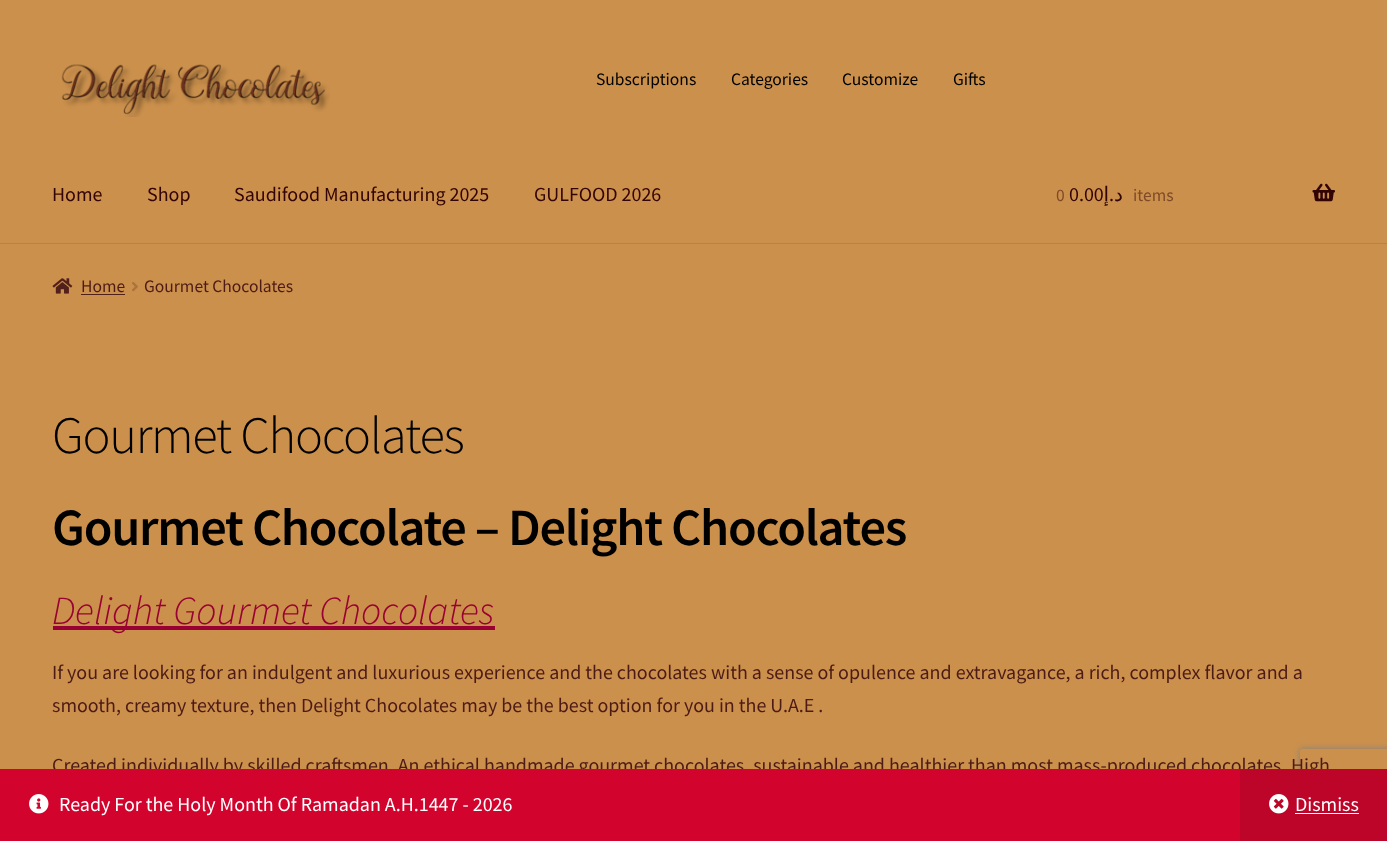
<?xml version="1.0" encoding="UTF-8"?>
<svg xmlns="http://www.w3.org/2000/svg" xmlns:xlink="http://www.w3.org/1999/xlink" width="1387" height="841">
  <defs>
    <clipPath id="clip1"><path d="M 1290 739 h 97 v 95 h -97 z m 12.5 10 h 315 c 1.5 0 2.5 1 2.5 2.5 v 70 c 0 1.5 -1 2.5 -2.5 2.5 h -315 c -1.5 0 -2.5 -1 -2.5 -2.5 v -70 c 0 -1.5 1 -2.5 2.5 -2.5 z" clip-rule="evenodd" /></clipPath>
  </defs>
  <rect width="100%" height="100%" fill="#cb904c" />
  <rect y="243" width="1387" height="1" fill="#bc813d" />
  <image x="61" y="64" width="269" height="53" xlink:href="image1.png" />
  <image x="1312" y="183" width="23" height="19" xlink:href="image2.png" />
  <image x="52" y="278" width="21" height="16" xlink:href="image3.png" />
  <rect x="81" y="294" width="44" height="1" fill="#52201b" />
  <image x="132" y="282" width="6" height="10" xlink:href="image4.png" />
  <rect x="53" y="626" width="442" height="4" fill="#990033" />
  <g clip-path="url(#clip1)">
    <rect x="1300" y="749" width="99" height="75" rx="2.5" fill="#808080" filter="blur(3px)" />
  </g>
  <text x="596" y="85" style="font-family: Source Sans Pro; font-size: 17.5px; fill: #000000">Subscriptions</text>
  <text x="731" y="85" style="font-family: Source Sans Pro; font-size: 17.5px; fill: #000000">Categories</text>
  <text x="842" y="85" style="font-family: Source Sans Pro; font-size: 17.5px; fill: #000000">Customize</text>
  <text x="953" y="85" style="font-family: Source Sans Pro; font-size: 17.5px; fill: #000000">Gifts</text>
  <text x="52" y="201" style="font-family: Source Sans Pro; font-size: 20px; fill: #330404">Home</text>
  <text x="147" y="201" style="font-family: Source Sans Pro; font-size: 20px; fill: #330404">Shop</text>
  <text x="234" y="201" style="font-family: Source Sans Pro; font-size: 20px; fill: #330404">Saudifood Manufacturing 2025</text>
  <text x="534" y="201" style="font-family: Source Sans Pro; font-size: 20px; fill: #330404">GULFOOD 2026</text>
  <text x="1056" y="201" style="font-family: Source Sans Pro; font-size: 17.5px; fill: #7f4a28">0</text>
  <text x="1069" y="201" style="font-family: Source Sans Pro; font-size: 20px; fill: #330404">0.00</text>
  <text x="1109" y="201" style="font-family: DejaVu Sans; font-size: 20px; direction: rtl; fill: #330404">إ</text>
  <text x="1114" y="201" style="font-family: Source Sans Pro; font-size: 20px; direction: rtl; fill: #330404">.</text>
  <text x="1123" y="201" style="font-family: DejaVu Sans; font-size: 20px; direction: rtl; fill: #330404">د</text>
  <text x="1133" y="201" style="font-family: Source Sans Pro; font-size: 17.5px; fill: #7f4a28">items</text>
  <text x="81" y="292" style="font-family: Source Sans Pro; font-size: 17.5px; fill: #4d1b16">Home</text>
  <text x="144" y="292" style="font-family: Source Sans Pro; font-size: 17.5px; fill: #4d1b16">Gourmet Chocolates</text>
  <text x="52" y="453" style="font-family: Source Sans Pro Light; font-size: 52.4px; font-weight: 300; letter-spacing: -1.25px; fill: #000000">Gourmet Chocolates</text>
  <text x="52" y="545" style="font-family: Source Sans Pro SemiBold; font-size: 52.4px; font-weight: 600; letter-spacing: -1.25px; fill: #000000">Gourmet Chocolate – Delight Chocolates</text>
  <text x="52" y="624" style="font-family: Source Sans Pro Light; font-size: 40px; font-weight: 300; font-style: italic; fill: #990033">Delight Gourmet Chocolates</text>
  <text x="52" y="679" style="font-family: Source Sans Pro; font-size: 20px; fill: #4d1b16">If you are looking for an indulgent and luxurious experience and the chocolates with a sense of opulence and extravagance, a rich, complex flavor and a</text>
  <text x="52" y="712" style="font-family: Source Sans Pro; font-size: 20px; fill: #4d1b16">smooth, creamy texture, then Delight Chocolates may be the best option for you in the U.A.E .</text>
  <text x="52" y="772" style="font-family: Source Sans Pro; font-size: 20px; fill: #4d1b16">Created individually by skilled craftsmen. An ethical handmade gourmet chocolates, sustainable and healthier than most mass-produced chocolates</text>
  <text x="1291" y="772" style="font-family: Source Sans Pro; font-size: 20px; fill: #4d1b16">High</text>
  <rect y="769" width="1240" height="72" fill="#d2042d" />
  <image x="29" y="794" width="20" height="20" xlink:href="image5.png" />
  <text x="59" y="811" style="font-family: Source Sans Pro; font-size: 20px; fill: #ffffff">Ready For the Holy Month Of Ramadan A.H.1447 - 2026</text>
  <rect x="1240" y="769" width="147" height="72" fill="#bd0429" />
  <image x="1269" y="794" width="20" height="20" xlink:href="image6.png" />
  <text x="1295" y="811" style="font-family: Source Sans Pro; font-size: 20px; fill: #ffffff">Dismiss</text>
  <rect x="1295" y="813" width="64" height="1" fill="#ffffff" />
</svg>
